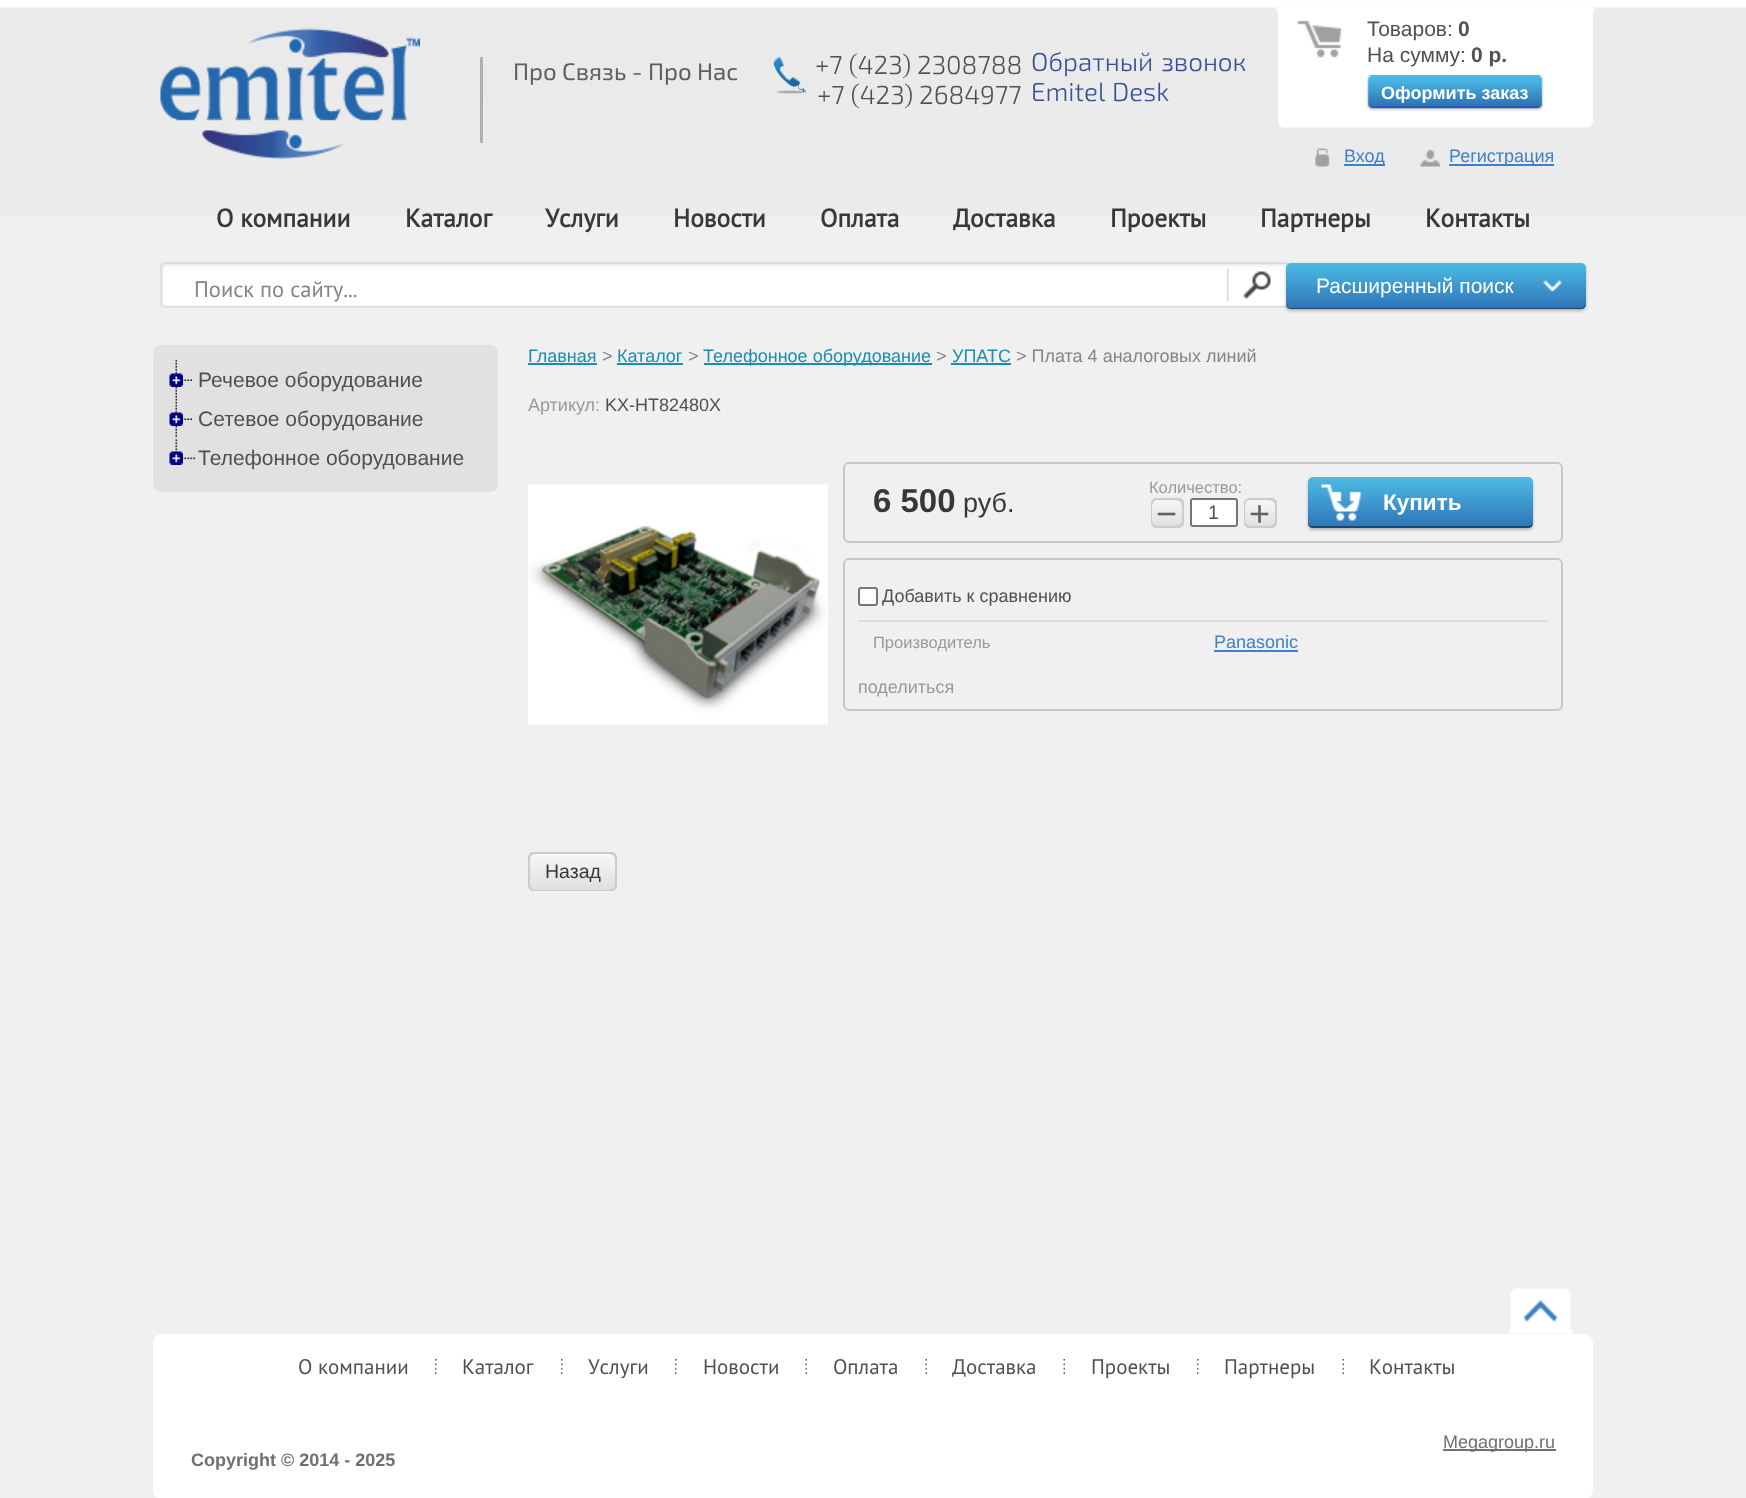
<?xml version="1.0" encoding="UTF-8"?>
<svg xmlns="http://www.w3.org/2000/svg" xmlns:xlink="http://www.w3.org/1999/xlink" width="1746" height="1498">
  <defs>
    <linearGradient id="g1" gradientUnits="userSpaceOnUse" x1="1436" y1="263" x2="1436" y2="309"><stop offset="0" stop-color="#4cbbe5" /><stop offset="1" stop-color="#2f74b7" /></linearGradient>
    <linearGradient id="g2" gradientUnits="userSpaceOnUse" x1="1167" y1="498" x2="1167" y2="528"><stop offset="0" stop-color="#f8f8f8" /><stop offset="1" stop-color="#dfdfdf" /></linearGradient>
    <linearGradient id="g3" gradientUnits="userSpaceOnUse" x1="1260" y1="498" x2="1260" y2="528"><stop offset="0" stop-color="#f8f8f8" /><stop offset="1" stop-color="#dfdfdf" /></linearGradient>
    <linearGradient id="g4" gradientUnits="userSpaceOnUse" x1="1421" y1="477" x2="1421" y2="528"><stop offset="0" stop-color="#4cbbe5" /><stop offset="1" stop-color="#2f74b7" /></linearGradient>
    <linearGradient id="g5" gradientUnits="userSpaceOnUse" x1="572" y1="852" x2="572" y2="891"><stop offset="0" stop-color="#f8f8f8" /><stop offset="1" stop-color="#dfdfdf" /></linearGradient>
  </defs>
  <rect width="100%" height="100%" fill="#f0f0f0" />
  <image x="0" y="0" width="1746" height="216" xlink:href="image1.png" />
  <image x="160" y="28" width="260" height="131" xlink:href="image2.png" />
  <rect x="480" y="57" width="3" height="86" fill="#afafaf" />
  <image x="773" y="57" width="34" height="37" xlink:href="image3.png" />
  <image x="1275" y="7" width="321" height="121" xlink:href="image4.png" />
  <image x="1366" y="75" width="178" height="36" xlink:href="image5.png" />
  <image x="1315" y="148" width="15" height="19" xlink:href="image6.png" />
  <rect x="1344" y="164" width="41" height="2" fill="#3e81c5" />
  <image x="1420" y="149" width="20" height="18" xlink:href="image7.png" />
  <rect x="1449" y="164" width="105" height="2" fill="#3e81c5" />
  <image x="160" y="262" width="1129" height="46" xlink:href="image8.png" />
  <rect x="1286" y="264" width="300" height="47" rx="5" fill="#000000" fill-opacity="0.25" filter="blur(1.5px)" />
  <rect x="1286" y="263" width="300" height="46" rx="5" fill="url(#g1)" />
  <path d="M 1286 303 v 1 c 0 3 2 5 5 5 h 290 c 3 0 5 -2 5 -5 v -1 c 0 2 -3 5 -5 5 h -291 c -2 0 -4 -3 -4 -5 z" fill="#000000" fill-opacity="0.4" />
  <image x="1543" y="280" width="19" height="12" xlink:href="image9.png" />
  <rect x="153" y="345" width="345" height="147" rx="8" fill="#e1e1e1" />
  <image x="175" y="360" width="2" height="39" xlink:href="image10.png" />
  <image x="183" y="379" width="9" height="2" xlink:href="image11.png" />
  <image x="169" y="373" width="14" height="14" xlink:href="image12.png" />
  <image x="175" y="399" width="2" height="39" xlink:href="image10.png" />
  <image x="183" y="418" width="9" height="2" xlink:href="image11.png" />
  <image x="169" y="412" width="14" height="14" xlink:href="image12.png" />
  <image x="175" y="439" width="20" height="21" xlink:href="image13.png" />
  <image x="169" y="451" width="14" height="14" xlink:href="image14.png" />
  <rect x="528" y="363" width="69" height="2" fill="#1d8dae" />
  <rect x="617" y="363" width="66" height="2" fill="#1d8dae" />
  <rect x="704" y="363" width="228" height="2" fill="#1d8dae" />
  <rect x="951" y="363" width="60" height="2" fill="#1d8dae" />
  <image x="528" y="484" width="300" height="241" xlink:href="image15.png" />
  <rect x="844" y="463" width="718" height="79" rx="5" fill="none" stroke="#c7c7c7" stroke-width="2" />
  <rect x="1151" y="498" width="33" height="30" rx="6" fill="url(#g2)" />
  <path d="M 1152.5 500 c -1 1 -1.5 2.5 -1.5 4 v 18 c 0 3.5 2.5 6 6 6 h 21 c 2.5 0 5 -1.5 5.5 -4 c -3 3 -13 2 -16.5 2 c -3 0 -8 0.5 -11 -0.5 c -1.5 0 -2.5 -1 -3 -2 l -1 -3 v -17 z" fill="#cccccc" />
  <path d="M 1155 500 c 5 0 21 -1 25 1.5 c 1 0.5 1.5 1.5 1.5 2.5 c 0.5 2 1 17 0.5 19.5 c 0 1.5 -0.5 3 -1.5 4 c 2 -1 3.5 -3 3.5 -5.5 v -18 c 0 -3.5 -2.5 -6 -6 -6 h -21 c -2 0 -4 1 -5 2.5 z" fill="#cccccc" />
  <path d="M 1152 525.5 c 1 1.5 3 2.5 5 2.5 h 21 c 3.5 0 6 -2.5 6 -6 v -18 c 0 -2.5 -1.5 -4.5 -3.5 -5.5 c 2 2 1.5 5.5 1.5 9.5 v 7.5 c 0.5 6.5 0.5 10.5 -10 10.5 h -17 c -1 0 -2 0 -3 -0.5 z" fill="#cccccc" />
  <path d="M 1158 500 h 18 c 4 0 6.5 0.5 7.5 2 c -0.5 -2.5 -3 -4 -5.5 -4 h -21 c -3.5 0 -6 2.5 -6 6 v 18 c 0 1.5 0.5 3 1.5 4 l -0.5 -4 v -16 l 1 -3.5 c 1 -2 3 -2.5 5 -2.5 z" fill="#cccccc" />
  <rect x="1191" y="499" width="46" height="27" rx="2" fill="#ffffff" stroke="#767676" stroke-width="2" />
  <rect x="1244" y="498" width="33" height="30" rx="6" fill="url(#g3)" />
  <path d="M 1245.5 500 c -1 1 -1.5 2.5 -1.5 4 v 18 c 0 3.5 2.5 6 6 6 h 21 c 3 0 5 -2 6 -4.5 c -3 3.5 -13.5 2.5 -17.5 2.5 c -3 0 -7.5 0.5 -10.5 -0.5 c -1.5 0 -2.5 -1 -3 -2 l -1 -3 v -17 z" fill="#cccccc" />
  <path d="M 1248 500 c 5 0 21.5 -1 25 1.5 c 1 0.5 1.5 1.5 2 2.5 c 0 1.5 0.5 17 0 19.5 c 0 1 -0.5 2.5 -1 3.5 c 2 -1 3 -2.5 3 -5 v -18 c 0 -3.5 -2.5 -6 -6 -6 h -21 c -2 0 -4 1 -5 2.5 z" fill="#cccccc" />
  <path d="M 1245 525.5 c 1 1.5 3 2.5 5 2.5 h 21 c 3.5 0 6 -2.5 6 -6 v -18 c 0 -2.5 -1 -4 -3 -5 c 1.5 2 1 5 1 9 v 7.5 c 0.5 7 0.5 10.5 -9 10.5 h -18 c -1 0 -2 0 -3 -0.5 z" fill="#cccccc" />
  <path d="M 1251 500 h 17 c 5 0 7.5 1 9 2.5 c -1 -2.5 -3 -4.5 -6 -4.5 h -21 c -3.5 0 -6 2.5 -6 6 v 18 c 0 1.5 0.5 3 1.5 4 l -0.5 -4 v -16 l 1 -3.5 c 1 -2 3 -2.5 5 -2.5 z" fill="#cccccc" />
  <rect x="1308" y="479" width="225" height="51" rx="5" fill="#000000" fill-opacity="0.25" filter="blur(1.5px)" />
  <rect x="1308" y="477" width="225" height="51" rx="5" fill="url(#g4)" />
  <path d="M 1308 522 v 1 c 0 3 2 5 5 5 h 215 c 3 0 5 -2 5 -5 v -1 c 0 2 -2 4 -5 4 h -216 c -2 0 -4 -2 -4 -4 z" fill="#000000" fill-opacity="0.4" />
  <image x="1321" y="484" width="41" height="37" xlink:href="image16.png" />
  <rect x="844" y="559" width="718" height="151" rx="5" fill="none" stroke="#c7c7c7" stroke-width="2" />
  <rect x="858" y="620" width="690" height="2" fill="#dedede" />
  <rect x="859" y="588" width="18" height="17" rx="2" fill="#ffffff" stroke="#767676" stroke-width="2" />
  <rect x="1214" y="650" width="84" height="2" fill="#3e81c5" />
  <rect x="528" y="852" width="89" height="39" rx="6" fill="url(#g5)" />
  <path d="M 531 853 c -2 1 -3 3 -3 5 v 27 c 0 3 3 6 6 6 h 77 c 2 0 4 -1 5 -3 c -1 1 -3 2 -4 2 h -76 c -4 0 -6 -3 -6 -6 v -28 z" fill="#cccccc" />
  <path d="M 532 854 h 77 c 3 0 6 2 6 6 v 26 c 0 2 -1 4 -2 5 c 2 -1 4 -3 4 -6 v -27 c 0 -3 -3 -6 -6 -6 h -77 c -2 0 -4 1 -5 3 z" fill="#cccccc" />
  <path d="M 530 890 c 1 0 3 1 4 1 h 77 c 3 0 6 -3 6 -6 v -27 c 0 -2 -1 -4 -3 -5 c 2 2 1 5 1 8 v 9 c 0 21 3 20 -19 20 z" fill="#cccccc" />
  <path d="M 536 854 h 77 l 4 2 c -1 -2 -3 -4 -6 -4 h -77 c -3 0 -6 3 -6 6 v 27 c 0 2 1 4 3 5 c -1 -1 -1 -2 -1 -4 v -26 c 0 -4 2 -6 6 -6 z" fill="#cccccc" />
  <rect x="153" y="1334" width="1440" height="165" rx="9" fill="#ffffff" />
  <image x="1507" y="1288" width="67" height="46" xlink:href="image17.png" />
  <image x="435" y="1359" width="2" height="15" xlink:href="image18.png" />
  <image x="561" y="1359" width="2" height="15" xlink:href="image18.png" />
  <image x="675" y="1359" width="2" height="15" xlink:href="image18.png" />
  <image x="805" y="1359" width="2" height="15" xlink:href="image19.png" />
  <image x="925" y="1359" width="2" height="15" xlink:href="image19.png" />
  <image x="1063" y="1359" width="2" height="15" xlink:href="image19.png" />
  <image x="1197" y="1359" width="2" height="15" xlink:href="image18.png" />
  <image x="1342" y="1359" width="2" height="15" xlink:href="image19.png" />
  <rect x="1443" y="1449" width="113" height="2" fill="#707070" />
  <text x="513" y="80" style="font-family: 'Exo 2'; font-size: 24px; fill: #606060">Про Связь - Про Нас</text>
  <text x="815" y="74" style="font-family: 'Exo 2'; font-size: 26px; font-weight: 300; fill: #505050">+7 (423) 2308788</text>
  <text x="817" y="104" style="font-family: 'Exo 2'; font-size: 26px; font-weight: 300; fill: #505050">+7 (423) 2684977</text>
  <text x="1031" y="71" word-spacing="2" style="font-family: 'Exo 2'; font-size: 26px; font-weight: 300; fill: #354f95">Обратный звонок</text>
  <text x="1031" y="101" style="font-family: 'Exo 2'; font-size: 26px; font-weight: 300; fill: #354f95">Emitel</text>
  <text x="1112" y="101" style="font-family: 'Exo 2'; font-size: 26px; font-weight: 300; fill: #354f95">Desk</text>
  <text x="1367" y="36" style="font-family: Liberation Sans; font-size: 21px; fill: #505050">Товаров:</text>
  <text x="1458" y="36" style="font-family: Liberation Sans; font-size: 21px; font-weight: bold; fill: #505050">0</text>
  <text x="1367" y="62" style="font-family: Liberation Sans; font-size: 21px; fill: #505050">На сумму:</text>
  <text x="1471" y="62" style="font-family: Liberation Sans; font-size: 21px; font-weight: bold; fill: #505050">0 р.</text>
  <text x="1381" y="99" style="font-family: Liberation Sans; font-size: 18px; font-weight: bold; fill: #ffffff">Оформить заказ</text>
  <text x="1344" y="162" style="font-family: Liberation Sans; font-size: 18px; fill: #3e81c5">Вход</text>
  <text x="1449" y="162" style="font-family: Liberation Sans; font-size: 18px; fill: #3e81c5">Регистрация</text>
  <text x="216" y="227" style="font-family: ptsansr; font-size: 25.5px; font-weight: bold; fill: #383838">О компании</text>
  <text x="405" y="227" style="font-family: ptsansr; font-size: 25.5px; font-weight: bold; fill: #383838">Каталог</text>
  <text x="545" y="227" style="font-family: ptsansr; font-size: 25.5px; font-weight: bold; fill: #383838">Услуги</text>
  <text x="673" y="227" style="font-family: ptsansr; font-size: 25.5px; font-weight: bold; fill: #383838">Новости</text>
  <text x="820" y="227" style="font-family: ptsansr; font-size: 25.5px; font-weight: bold; fill: #383838">Оплата</text>
  <text x="953" y="227" style="font-family: ptsansr; font-size: 25.5px; font-weight: bold; fill: #383838">Доставка</text>
  <text x="1110" y="227" style="font-family: ptsansr; font-size: 25.5px; font-weight: bold; fill: #383838">Проекты</text>
  <text x="1260" y="227" style="font-family: ptsansr; font-size: 25.5px; font-weight: bold; fill: #383838">Партнеры</text>
  <text x="1425" y="227" style="font-family: ptsansr; font-size: 25.5px; font-weight: bold; fill: #383838">Контакты</text>
  <text x="194" y="297" style="font-family: ptsansr; font-size: 22.5px; fill: #848484">Поиск по сайту...</text>
  <text x="1316" y="293" style="font-family: Liberation Sans; font-size: 21px; fill: #ffffff">Расширенный поиск</text>
  <text x="198" y="387" style="font-family: Liberation Sans; font-size: 21px; fill: #505050">Речевое оборудование</text>
  <text x="198" y="426" style="font-family: Liberation Sans; font-size: 21px; fill: #505050">Сетевое оборудование</text>
  <text x="198" y="465" style="font-family: Liberation Sans; font-size: 21px; fill: #505050">Телефонное оборудование</text>
  <text x="528" y="362" style="font-family: Liberation Sans; font-size: 18px; fill: #1d8dae">Главная</text>
  <text x="602" y="362" style="font-family: Liberation Sans; font-size: 18px; fill: #848484">&gt;</text>
  <text x="617" y="362" style="font-family: Liberation Sans; font-size: 18px; fill: #1d8dae">Каталог</text>
  <text x="688" y="362" style="font-family: Liberation Sans; font-size: 18px; fill: #848484">&gt;</text>
  <text x="703" y="362" style="font-family: Liberation Sans; font-size: 18px; fill: #1d8dae">Телефонное оборудование</text>
  <text x="936" y="362" style="font-family: Liberation Sans; font-size: 18px; fill: #848484">&gt;</text>
  <text x="952" y="362" style="font-family: Liberation Sans; font-size: 18px; fill: #1d8dae">УПАТС</text>
  <text x="1016" y="362" style="font-family: Liberation Sans; font-size: 18px; fill: #848484">&gt; Плата 4 аналоговых линий</text>
  <text x="528" y="411" style="font-family: Liberation Sans; font-size: 18px; fill: #999999">Артикул:</text>
  <text x="605" y="411" style="font-family: Liberation Sans; font-size: 18px; fill: #505050">KX-HT82480X</text>
  <text x="873" y="512" style="font-family: Liberation Sans; font-size: 33px; font-weight: bold; fill: #383838">6 500</text>
  <text x="963" y="512" style="font-family: Liberation Sans; font-size: 27px; fill: #383838">руб.</text>
  <text x="1149" y="493" style="font-family: Liberation Sans; font-size: 16.5px; fill: #999999">Количество:</text>
  <text x="1156" y="526" style="font-family: Liberation Sans; font-size: 36px; fill: #606060">−</text>
  <text x="1208" y="519" style="font-family: Liberation Sans; font-size: 19.5px; fill: #505050">1</text>
  <text x="1249" y="526" style="font-family: Liberation Sans; font-size: 36px; fill: #606060">+</text>
  <text x="1383" y="510" style="font-family: Liberation Sans; font-size: 22.5px; font-weight: bold; fill: #ffffff">Купить</text>
  <text x="882" y="602" style="font-family: Liberation Sans; font-size: 18px; fill: #505050">Добавить к сравнению</text>
  <text x="873" y="648" style="font-family: Liberation Sans; font-size: 16.5px; fill: #999999">Производитель</text>
  <text x="1214" y="648" style="font-family: Liberation Sans; font-size: 18px; fill: #3e81c5">Panasonic</text>
  <text x="858" y="693" style="font-family: Liberation Sans; font-size: 18px; fill: #999999">поделиться</text>
  <text x="545" y="878" style="font-family: Liberation Sans; font-size: 19.5px; fill: #383838">Назад</text>
  <text x="298" y="1374" style="font-family: ptsansr; font-size: 21px; fill: #505050">О компании</text>
  <text x="462" y="1374" style="font-family: ptsansr; font-size: 21px; fill: #505050">Каталог</text>
  <text x="588" y="1374" style="font-family: ptsansr; font-size: 21px; fill: #505050">Услуги</text>
  <text x="703" y="1374" style="font-family: ptsansr; font-size: 21px; fill: #505050">Новости</text>
  <text x="833" y="1374" style="font-family: ptsansr; font-size: 21px; fill: #505050">Оплата</text>
  <text x="952" y="1374" style="font-family: ptsansr; font-size: 21px; fill: #505050">Доставка</text>
  <text x="1091" y="1374" style="font-family: ptsansr; font-size: 21px; fill: #505050">Проекты</text>
  <text x="1224" y="1374" style="font-family: ptsansr; font-size: 21px; fill: #505050">Партнеры</text>
  <text x="1369" y="1374" style="font-family: ptsansr; font-size: 21px; fill: #505050">Контакты</text>
  <text x="1443" y="1448" style="font-family: Liberation Sans; font-size: 18px; fill: #707070">Megagroup.ru</text>
  <text x="191" y="1466" style="font-family: Liberation Sans; font-size: 18px; font-weight: bold; fill: #707070">Copyright © 2014 - 2025</text>
</svg>
